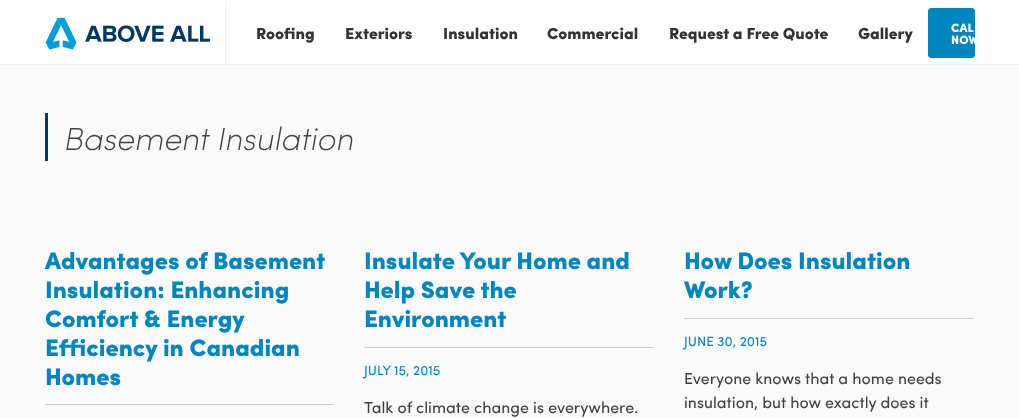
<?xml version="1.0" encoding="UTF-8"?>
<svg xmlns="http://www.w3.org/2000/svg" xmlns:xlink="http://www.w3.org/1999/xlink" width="1019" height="418">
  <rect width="100%" height="100%" fill="#fafafa" />
  <rect width="1019" height="64" fill="#ffffff" />
  <rect y="64" width="1019" height="1" fill="#f1f1f1" />
  <rect x="225" y="1" width="1" height="64" fill="#f1f1f1" />
  <image x="45" y="17" width="165" height="33" xlink:href="image1.png" />
  <rect x="928.5" y="8.5" width="46" height="49" rx="2.5" fill="#0086bf" stroke="#0086bf" />
  <rect x="45" y="113" width="3" height="48" fill="#003b5c" />
  <rect x="45" y="404" width="289" height="1" fill="#cccccc" />
  <rect x="364" y="347" width="290" height="1" fill="#cccccc" />
  <rect x="684" y="318" width="290" height="1" fill="#cccccc" />
  <text x="256" y="39" style="font-family: Sofia; font-size: 16px; font-weight: 900; fill: #333333">Roofing</text>
  <text x="345" y="39" style="font-family: Sofia; font-size: 16px; font-weight: 900; fill: #333333">Exteriors</text>
  <text x="443" y="39" style="font-family: Sofia; font-size: 16px; font-weight: 900; fill: #333333">Insulation</text>
  <text x="547" y="39" style="font-family: Sofia; font-size: 16px; font-weight: 900; fill: #333333">Commercial</text>
  <text x="669" y="39" style="font-family: Sofia; font-size: 16px; font-weight: 900; fill: #333333">Request a Free Quote</text>
  <text x="858" y="39" style="font-family: Sofia; font-size: 16px; font-weight: 900; fill: #333333">Gallery</text>
  <text x="951" y="32" style="font-family: Sofia; font-size: 12px; font-weight: 900; fill: #ffffff">CAL</text>
  <text x="951" y="44" style="font-family: Sofia; font-size: 12px; font-weight: 900; fill: #ffffff">NOW</text>
  <text x="63" y="150" style="font-family: Sofia; font-size: 32px; font-weight: 200; font-style: italic; fill: #404040">Basement Insulation</text>
  <text x="45" y="269" style="font-family: Sofia; font-size: 24px; font-weight: 900; fill: #0086bf">Advantages of Basement</text>
  <text x="45" y="298" style="font-family: Sofia; font-size: 24px; font-weight: 900; fill: #0086bf">Insulation: Enhancing</text>
  <text x="45" y="327" style="font-family: Sofia; font-size: 24px; font-weight: 900; fill: #0086bf">Comfort &amp; Energy</text>
  <text x="45" y="356" style="font-family: Sofia; font-size: 24px; font-weight: 900; fill: #0086bf">Efficiency in Canadian</text>
  <text x="45" y="385" style="font-family: Sofia; font-size: 24px; font-weight: 900; fill: #0086bf">Homes</text>
  <text x="364" y="269" style="font-family: Sofia; font-size: 24px; font-weight: 900; fill: #0086bf">Insulate Your Home and</text>
  <text x="364" y="298" style="font-family: Sofia; font-size: 24px; font-weight: 900; fill: #0086bf">Help Save the</text>
  <text x="364" y="327" style="font-family: Sofia; font-size: 24px; font-weight: 900; fill: #0086bf">Environment</text>
  <text x="364" y="375" style="font-family: Sofia; font-size: 13.5px; fill: #0086bf">JULY 15, 2015</text>
  <text x="364" y="413" style="font-family: Sofia; font-size: 16px; fill: #404040">Talk of climate change is everywhere.</text>
  <text x="684" y="269" style="font-family: Sofia; font-size: 24px; font-weight: 900; fill: #0086bf">How Does Insulation</text>
  <text x="684" y="298" style="font-family: Sofia; font-size: 24px; font-weight: 900; fill: #0086bf">Work?</text>
  <text x="684" y="346" style="font-family: Sofia; font-size: 13.5px; fill: #0086bf">JUNE 30, 2015</text>
  <text x="684" y="384" style="font-family: Sofia; font-size: 16px; fill: #404040">Everyone knows that a home needs</text>
  <text x="684" y="408" style="font-family: Sofia; font-size: 16px; fill: #404040">insulation, but how exactly does it</text>
</svg>
